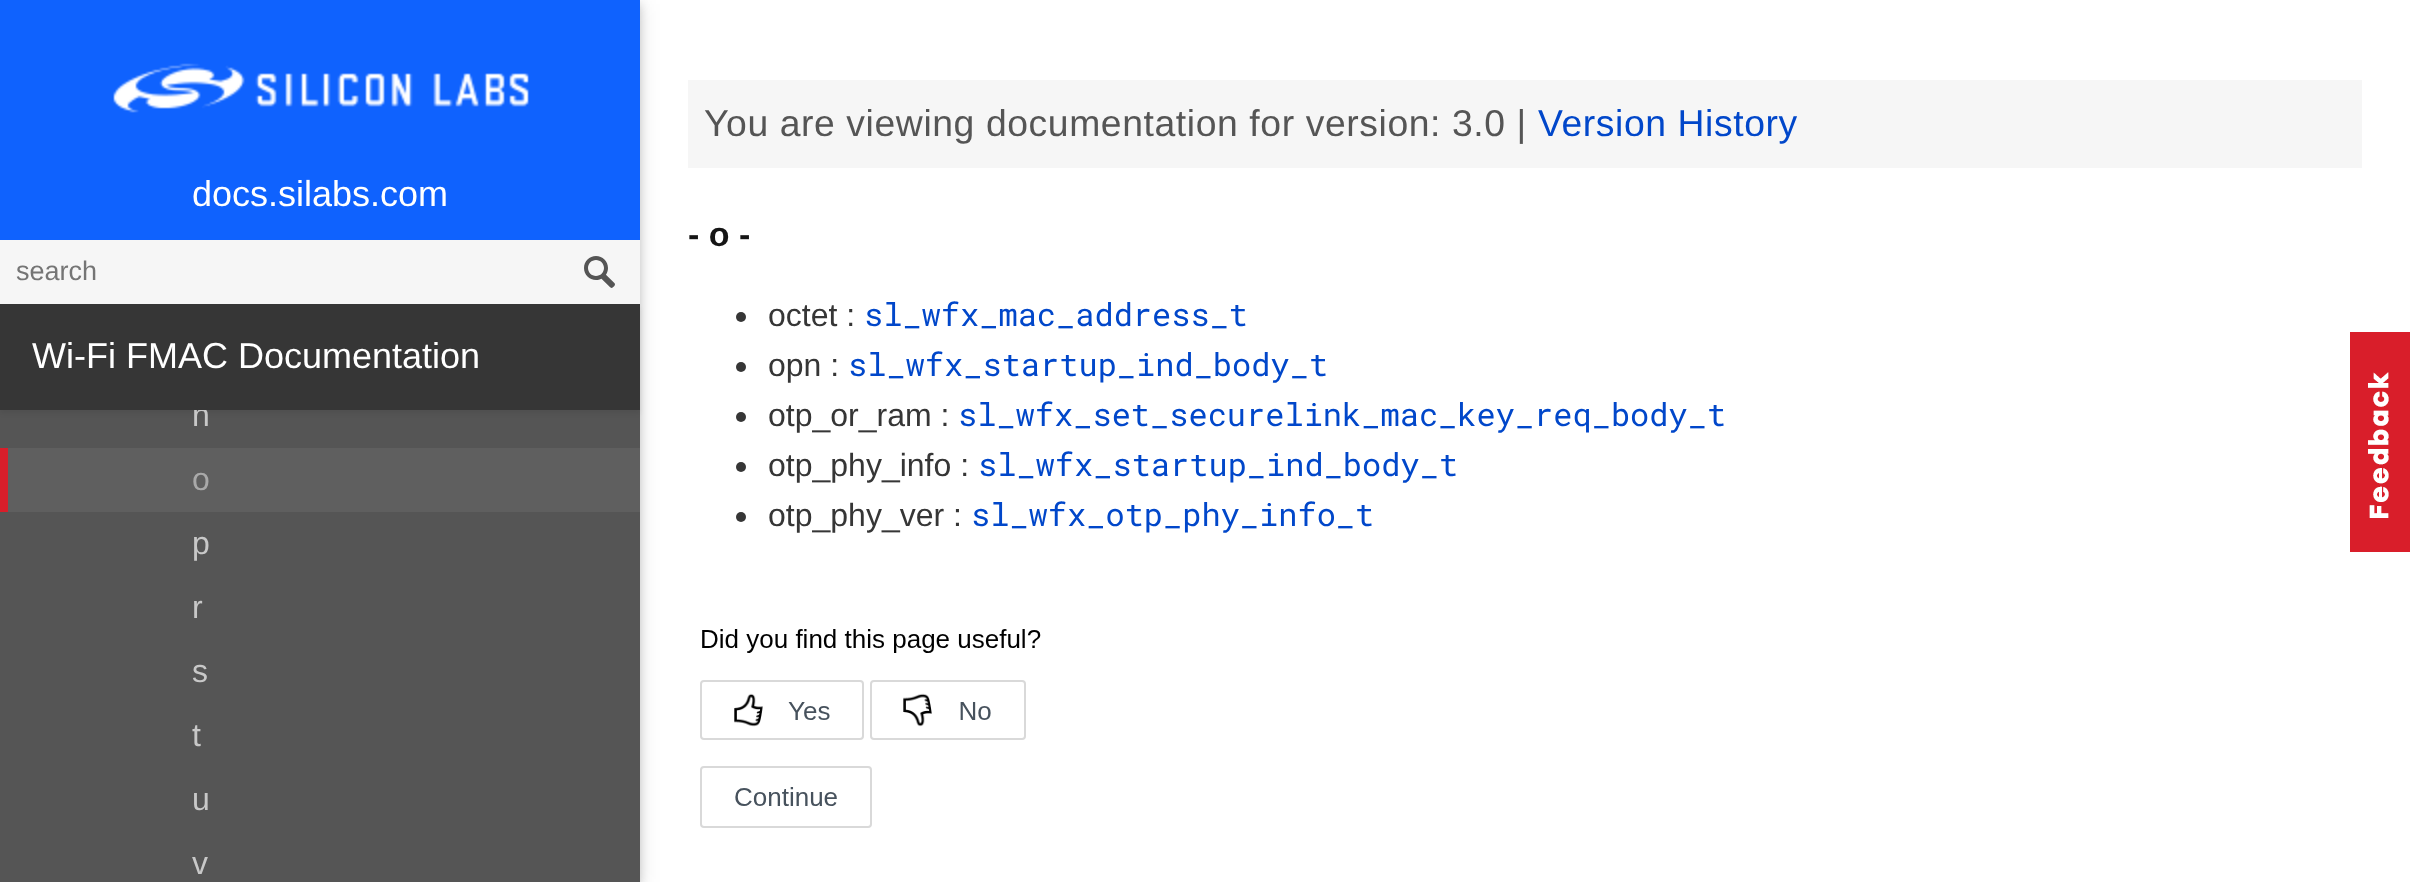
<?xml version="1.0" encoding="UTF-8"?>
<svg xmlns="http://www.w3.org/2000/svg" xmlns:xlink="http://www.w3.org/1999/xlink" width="2410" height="882">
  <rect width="100%" height="100%" fill="#ffffff" />
  <rect y="4" width="640" height="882" fill="#000000" fill-opacity="0.12" filter="blur(10px)" />
  <rect y="4" width="640" height="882" fill="#000000" fill-opacity="0.16" filter="blur(5px)" />
  <rect width="640" height="240" fill="#0f62fe" />
  <image x="113" y="63" width="416" height="50" xlink:href="image1.png" />
  <rect y="240" width="640" height="64" fill="#f6f6f6" />
  <image x="584" y="256" width="31" height="32" xlink:href="image2.png" />
  <rect y="410" width="640" height="472" fill="#555555" />
  <rect y="308" width="640" height="106" fill="#000000" fill-opacity="0.06" filter="blur(2px)" />
  <rect x="8" y="448" width="632" height="64" fill="#5f5f5f" />
  <rect y="448" width="8" height="64" fill="#d91e2a" />
  <rect x="688" y="80" width="1674" height="88" fill="#f6f6f6" />
  <circle cx="741" cy="317" r="5" fill="#363636" />
  <circle cx="741" cy="367" r="5" fill="#363636" />
  <circle cx="741" cy="417" r="5" fill="#363636" />
  <circle cx="741" cy="467" r="5" fill="#363636" />
  <circle cx="741" cy="517" r="5" fill="#363636" />
  <image x="700" y="629" width="341" height="199" xlink:href="image3.png" />
  <image x="2350" y="332" width="60" height="220" xlink:href="image4.png" />
  <text x="192" y="206" style="font-family: Liberation Sans; font-size: 36px; fill: #ffffff">docs.silabs.com</text>
  <text x="16" y="280" style="font-family: Liberation Sans; font-size: 27px; fill: #757575">search</text>
  <text x="192" y="426" style="font-family: Liberation Sans; font-size: 32px; fill: #c8c8c8">n</text>
  <rect y="304" width="640" height="106" fill="#363636" />
  <text x="32" y="368" style="font-family: Liberation Sans; font-size: 36px; fill: #ffffff">Wi-Fi FMAC Documentation</text>
  <text x="192" y="490" style="font-family: Liberation Sans; font-size: 32px; fill: #a9a9a9">o</text>
  <text x="192" y="554" style="font-family: Liberation Sans; font-size: 32px; fill: #c8c8c8">p</text>
  <text x="192" y="618" style="font-family: Liberation Sans; font-size: 32px; fill: #c8c8c8">r</text>
  <text x="192" y="682" style="font-family: Liberation Sans; font-size: 32px; fill: #c8c8c8">s</text>
  <text x="192" y="746" style="font-family: Liberation Sans; font-size: 32px; fill: #c8c8c8">t</text>
  <text x="192" y="810" style="font-family: Liberation Sans; font-size: 32px; fill: #c8c8c8">u</text>
  <text x="192" y="874" style="font-family: Liberation Sans; font-size: 32px; fill: #c8c8c8">v</text>
  <text x="704" y="136" style="font-family: Liberation Sans; font-size: 37.3px; letter-spacing: 0.6px; fill: #555555">You are viewing documentation for version:</text>
  <text x="1452" y="136" style="font-family: Liberation Sans; font-size: 37.3px; letter-spacing: 0.6px; fill: #555555">3.0 |</text>
  <text x="1538" y="136" style="font-family: Liberation Sans; font-size: 37.3px; letter-spacing: 0.6px; fill: #0147ca">Version History</text>
  <text x="688" y="246" style="font-family: Liberation Sans; font-size: 34px; font-weight: bold; fill: #151515">- o -</text>
  <text x="768" y="326" style="font-family: Liberation Sans; font-size: 32px; fill: #363636">octet :</text>
  <text x="864" y="326" style="font-family: Roboto Mono; font-size: 32px; fill: #0147ca">sl_wfx_mac_address_t</text>
  <text x="768" y="376" style="font-family: Liberation Sans; font-size: 32px; fill: #363636">opn :</text>
  <text x="848" y="376" style="font-family: Roboto Mono; font-size: 32px; fill: #0147ca">sl_wfx_startup_ind_body_t</text>
  <text x="768" y="426" style="font-family: Liberation Sans; font-size: 32px; fill: #363636">otp_or_ram :</text>
  <text x="958" y="426" style="font-family: Roboto Mono; font-size: 32px; fill: #0147ca">sl_wfx_set_securelink_mac_key_req_body_t</text>
  <text x="768" y="476" style="font-family: Liberation Sans; font-size: 32px; fill: #363636">otp_phy_info :</text>
  <text x="978" y="476" style="font-family: Roboto Mono; font-size: 32px; fill: #0147ca">sl_wfx_startup_ind_body_t</text>
  <text x="768" y="526" style="font-family: Liberation Sans; font-size: 32px; fill: #363636">otp_phy_ver :</text>
  <text x="971" y="526" style="font-family: Roboto Mono; font-size: 32px; fill: #0147ca">sl_wfx_otp_phy_info_t</text>
</svg>
